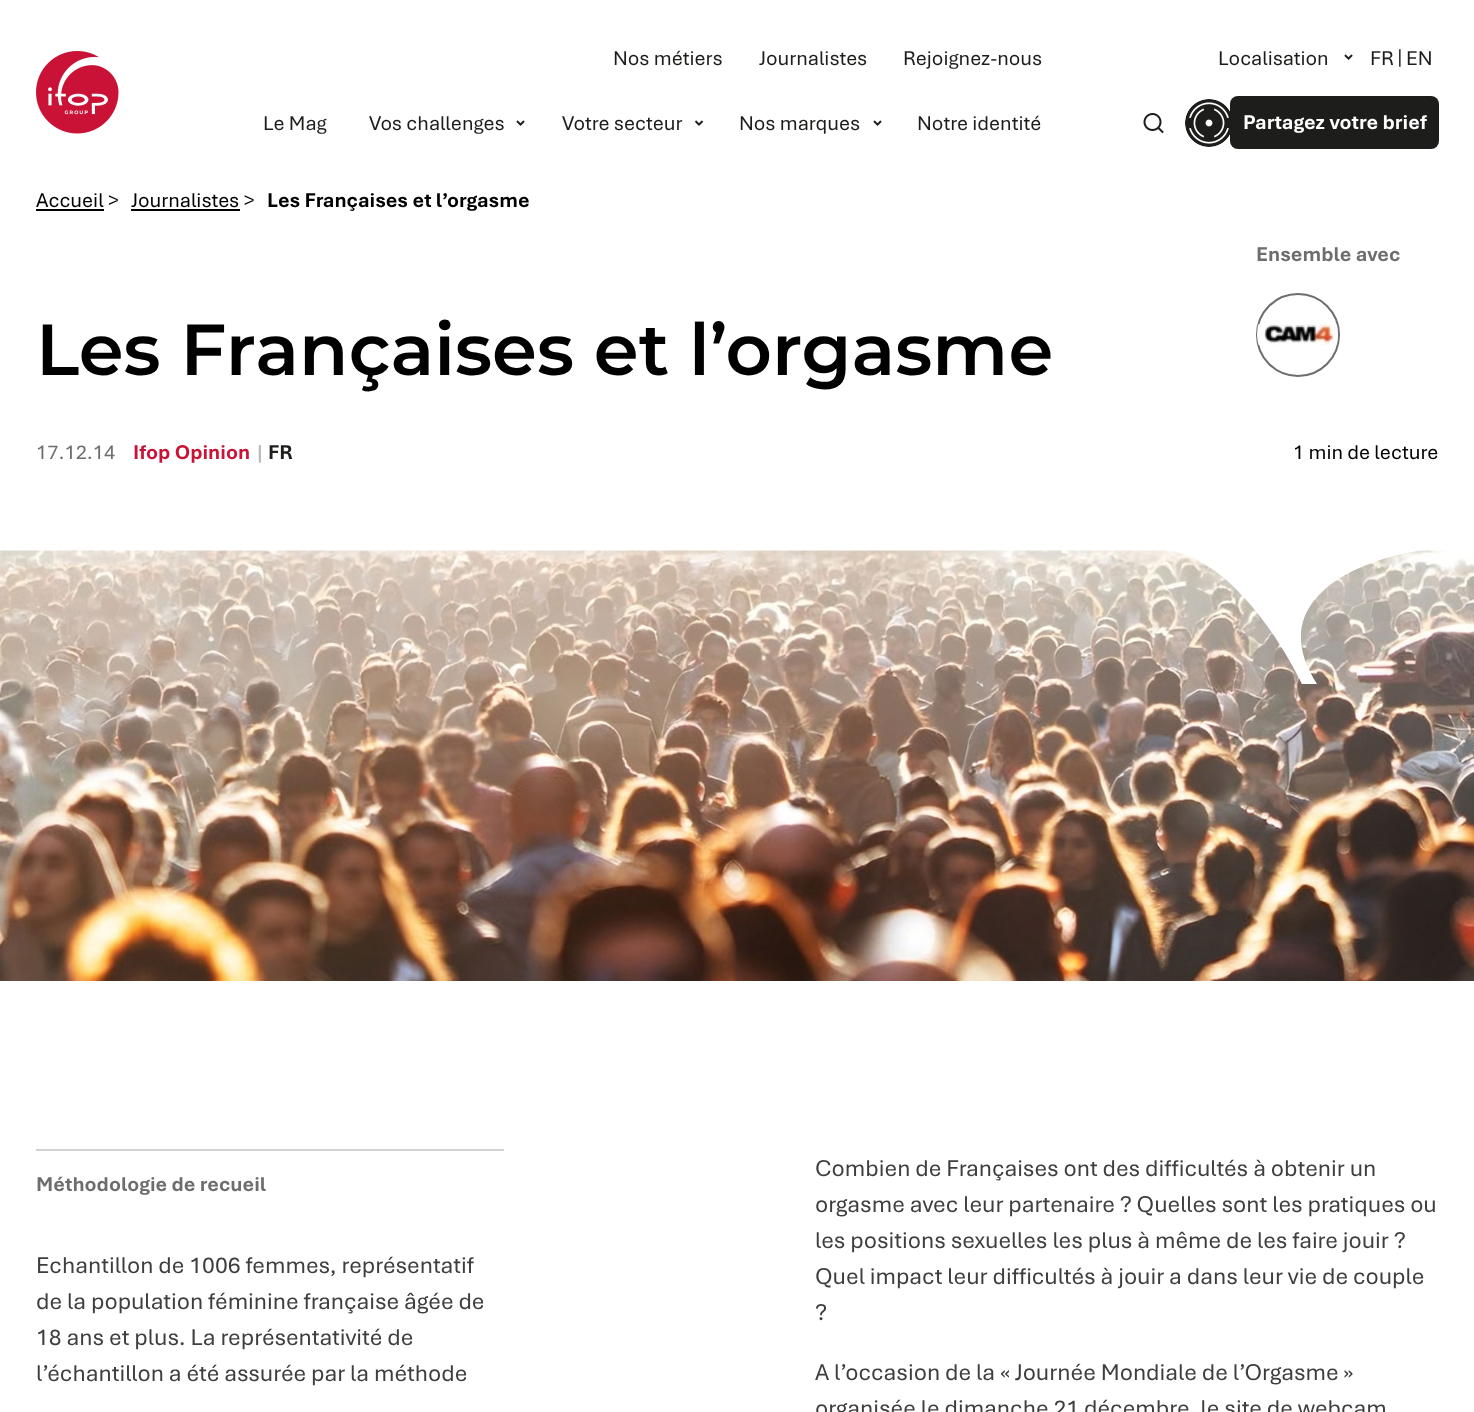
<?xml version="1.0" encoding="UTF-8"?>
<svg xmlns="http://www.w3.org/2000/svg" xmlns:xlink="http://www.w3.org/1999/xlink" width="1474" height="1412">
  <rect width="100%" height="100%" fill="#ffffff" />
  <image x="36" y="51" width="83" height="83" xlink:href="image1.png" />
  <image x="1344" y="54" width="9" height="6" xlink:href="image2.png" />
  <image x="516" y="120" width="9" height="6" xlink:href="image2.png" />
  <image x="695" y="120" width="9" height="6" xlink:href="image3.png" />
  <image x="873" y="120" width="9" height="6" xlink:href="image2.png" />
  <image x="1143" y="113" width="21" height="21" xlink:href="image4.png" />
  <image x="1185" y="99" width="45" height="48" xlink:href="image5.png" />
  <rect x="1230" y="96" width="209" height="53" rx="8" fill="#1d1d1b" />
  <rect x="36" y="209" width="68" height="2" fill="#000000" />
  <rect x="131" y="209" width="109" height="2" fill="#000000" />
  <circle cx="1298" cy="335" r="41" fill="none" stroke="#6d6d6d" stroke-width="2" />
  <image x="1257" y="324" width="81" height="21" xlink:href="image6.png" />
  <image x="0" y="550" width="1474" height="431" xlink:href="image7.png" />
  <path d="M 1317 684 c -59 -91 59 -132 121 -135 h -282 c 83 0 146 135 146 135 z" fill="#ffffff" />
  <rect x="36" y="1149" width="468" height="2" fill="#d2d2d1" />
  <text x="613" y="65" style="font-family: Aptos; font-size: 21px; fill: #1d1d1b">Nos métiers</text>
  <text x="759" y="65" style="font-family: Aptos; font-size: 21px; fill: #1d1d1b">Journalistes</text>
  <text x="903" y="65" style="font-family: Aptos; font-size: 21px; fill: #1d1d1b">Rejoignez-nous</text>
  <text x="1218" y="65" style="font-family: Aptos; font-size: 21px; fill: #1d1d1b">Localisation</text>
  <text x="1370" y="65" style="font-family: Aptos; font-size: 21px; fill: #1d1d1b">FR</text>
  <text x="1397" y="63" style="font-family: Aptos; font-size: 21px; fill: #1d1d1b">|</text>
  <text x="1406" y="65" style="font-family: Aptos; font-size: 21px; fill: #1d1d1b">EN</text>
  <text x="263" y="130" style="font-family: Aptos; font-size: 21px; fill: #1d1d1b">Le Mag</text>
  <text x="369" y="130" style="font-family: Aptos; font-size: 21px; fill: #1d1d1b">Vos challenges</text>
  <text x="562" y="130" style="font-family: Aptos; font-size: 21px; fill: #1d1d1b">Votre secteur</text>
  <text x="739" y="130" style="font-family: Aptos; font-size: 21px; fill: #1d1d1b">Nos marques</text>
  <text x="917" y="130" style="font-family: Aptos; font-size: 21px; fill: #1d1d1b">Notre identité</text>
  <text x="1243" y="129" style="font-family: Aptos; font-size: 21px; font-weight: bold; fill: #ffffff">Partagez votre brief</text>
  <text x="36" y="207" style="font-family: Aptos; font-size: 21px; fill: #000000">Accueil &gt;</text>
  <text x="131" y="207" style="font-family: Aptos; font-size: 21px; fill: #000000">Journalistes &gt;</text>
  <text x="267" y="207" style="font-family: Aptos; font-size: 21px; font-weight: bold; fill: #000000">Les Françaises et l’orgasme</text>
  <text x="1256" y="261" style="font-family: Aptos; font-size: 21px; font-weight: bold; fill: #6d6d6d">Ensemble avec</text>
  <text x="36" y="375" style="font-family: Montserrat; font-size: 72px; font-weight: 600; fill: #000000">Les Françaises et l’orgasme</text>
  <text x="36" y="459" style="font-family: Aptos; font-size: 21px; fill: #6d6d6d">17.12.14</text>
  <text x="133" y="459" style="font-family: Aptos; font-size: 21px; font-weight: bold; fill: #c91235">Ifop Opinion</text>
  <text x="257" y="459" style="font-family: Aptos; font-size: 21px; font-weight: bold; fill: #bababa">|</text>
  <text x="268" y="459" style="font-family: Aptos; font-size: 21px; font-weight: bold; fill: #1d1d1b">FR</text>
  <text x="1293" y="459" style="font-family: Aptos; font-size: 21px; fill: #000000">1 min de lecture</text>
  <text x="36" y="1191" style="font-family: Aptos; font-size: 21px; font-weight: bold; fill: #6d6d6d">Méthodologie de recueil</text>
  <text x="36" y="1273" style="font-family: Aptos; font-size: 24px; fill: #3e3e3e">Echantillon de 1006 femmes, représentatif</text>
  <text x="36" y="1309" style="font-family: Aptos; font-size: 24px; fill: #3e3e3e">de la population féminine française âgée de</text>
  <text x="36" y="1345" style="font-family: Aptos; font-size: 24px; fill: #3e3e3e">18 ans et plus. La représentativité de</text>
  <text x="36" y="1381" style="font-family: Aptos; font-size: 24px; fill: #3e3e3e">l’échantillon a été assurée par la méthode</text>
  <text x="815" y="1176" style="font-family: Aptos; font-size: 24px; fill: #3e3e3e">Combien de Françaises ont des difficultés à obtenir un</text>
  <text x="815" y="1212" style="font-family: Aptos; font-size: 24px; fill: #3e3e3e">orgasme avec leur partenaire ? Quelles sont les pratiques ou</text>
  <text x="815" y="1248" style="font-family: Aptos; font-size: 24px; fill: #3e3e3e">les positions sexuelles les plus à même de les faire jouir ?</text>
  <text x="815" y="1284" style="font-family: Aptos; font-size: 24px; fill: #3e3e3e">Quel impact leur difficultés à jouir a dans leur vie de couple</text>
  <text x="815" y="1320" style="font-family: Aptos; font-size: 24px; fill: #3e3e3e">?</text>
  <text x="815" y="1380" style="font-family: Aptos; font-size: 24px; fill: #3e3e3e">A l’occasion de la « Journée Mondiale de l’Orgasme »</text>
  <text x="815" y="1416" style="font-family: Aptos; font-size: 24px; fill: #3e3e3e">organisée le dimanche 21 décembre, le site de webcam</text>
</svg>
